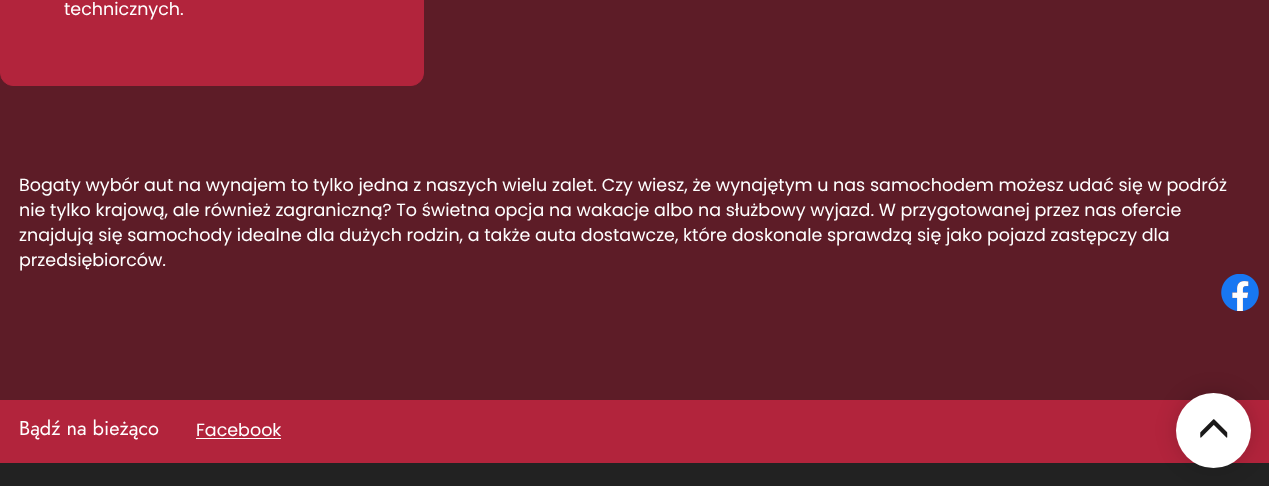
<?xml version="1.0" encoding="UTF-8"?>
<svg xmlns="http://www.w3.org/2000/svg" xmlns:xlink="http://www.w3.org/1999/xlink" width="1269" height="486">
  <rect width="100%" height="100%" fill="#5d1c27" />
  <rect x="0.5" y="-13.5" width="423" height="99" rx="12.5" fill="#b2243c" stroke="#b2243c" />
  <image x="1221" y="274" width="38" height="37" xlink:href="image1.png" />
  <rect y="463" width="1269" height="23" fill="#222222" />
  <rect y="400" width="1269" height="63" fill="#b2243c" />
  <rect x="196" y="438" width="85" height="1" fill="#ffffff" />
  <rect x="1175" y="391" width="78" height="78" rx="39" fill="#000000" fill-opacity="0.15" filter="blur(10px)" />
  <circle cx="1213.5" cy="430.5" r="37.5" fill="#ffffff" />
  <image x="1200" y="419" width="28" height="19" xlink:href="image2.png" />
  <text x="64" y="15" style="font-family: Poppins; font-size: 17.5px; fill: #ffffff">technicznych.</text>
  <text x="19" y="191" style="font-family: Poppins; font-size: 17.5px; fill: #ffffff">Bogaty wybór aut na wynajem to tylko jedna z naszych wielu zalet. Czy wiesz, że wynajętym u nas samochodem możesz udać się w podróż</text>
  <text x="19" y="216" style="font-family: Poppins; font-size: 17.5px; fill: #ffffff">nie tylko krajową, ale również zagraniczną? To świetna opcja na wakacje albo na służbowy wyjazd. W przygotowanej przez nas ofercie</text>
  <text x="19" y="241" style="font-family: Poppins; font-size: 17.5px; fill: #ffffff">znajdują się samochody idealne dla dużych rodzin, a także auta dostawcze, które doskonale sprawdzą się jako pojazd zastępczy dla</text>
  <text x="19" y="266" style="font-family: Poppins; font-size: 17.5px; fill: #ffffff">przedsiębiorców.</text>
  <text x="19" y="435" style="font-family: Jost; font-size: 20px; fill: #ffffff">Bądź na bieżąco</text>
  <text x="196" y="436" style="font-family: Poppins; font-size: 17.5px; fill: #ffffff">Facebook</text>
</svg>
